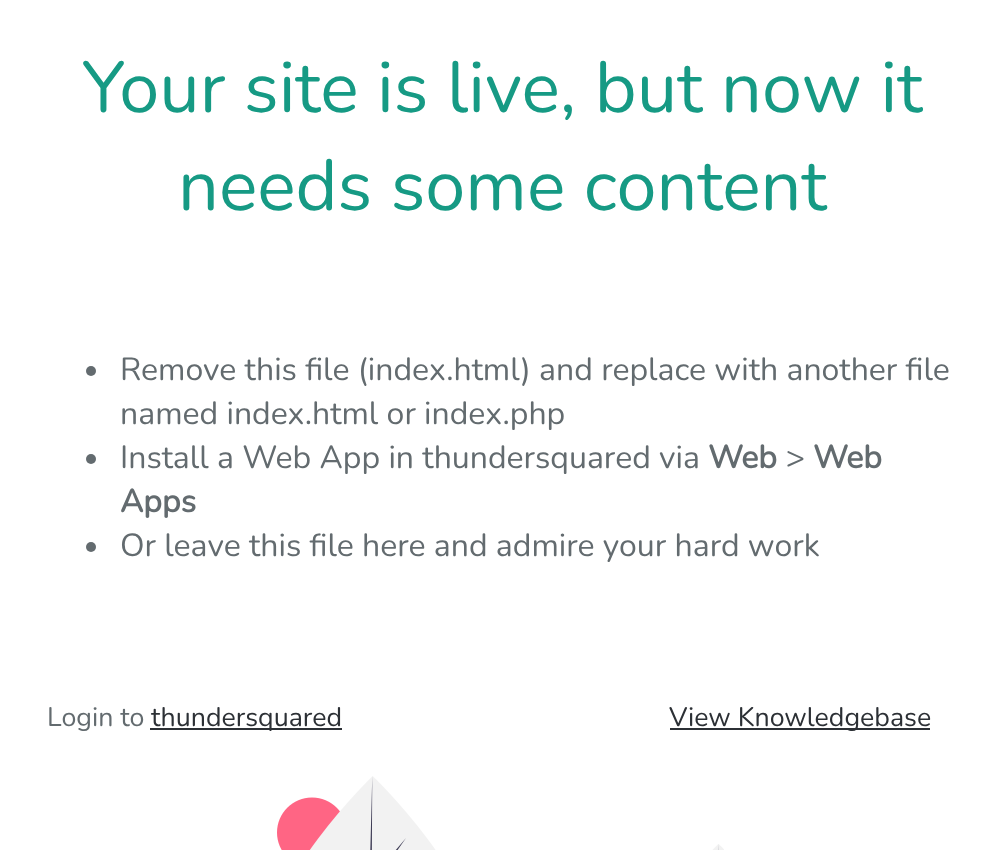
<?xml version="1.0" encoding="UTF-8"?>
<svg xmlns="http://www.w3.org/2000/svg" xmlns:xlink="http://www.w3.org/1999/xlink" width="1004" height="850">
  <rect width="100%" height="100%" fill="#ffffff" />
  <circle cx="91" cy="371" r="5" fill="#636b6f" />
  <circle cx="91" cy="459" r="5" fill="#636b6f" />
  <circle cx="91" cy="547" r="5" fill="#636b6f" />
  <rect x="150" y="728" width="192" height="2" fill="#2c3035" />
  <rect x="670" y="728" width="260" height="2" fill="#2c3035" />
  <image x="277" y="776" width="447" height="74" xlink:href="image1.png" />
  <text x="82" y="112" style="font-family: Nunito; font-size: 72px; font-weight: 200; fill: #169a84">Your site is live, but now it</text>
  <text x="178" y="210" style="font-family: Nunito; font-size: 72px; font-weight: 200; fill: #169a84">needs some content</text>
  <text x="120" y="380" style="font-family: Nunito; font-size: 32px; font-weight: 200; fill: #636b6f">Remove this file (index.html) and replace with another file</text>
  <text x="120" y="424" style="font-family: Nunito; font-size: 32px; font-weight: 200; fill: #636b6f">named index.html or index.php</text>
  <text x="120" y="468" style="font-family: Nunito; font-size: 32px; font-weight: 200; fill: #636b6f">Install a Web App in thundersquared via</text>
  <text x="708" y="468" style="font-family: Nunito; font-size: 32px; font-weight: bold; fill: #636b6f">Web</text>
  <text x="786" y="468" style="font-family: Nunito; font-size: 32px; font-weight: 200; fill: #636b6f">&gt;</text>
  <text x="813" y="468" style="font-family: Nunito; font-size: 32px; font-weight: bold; fill: #636b6f">Web</text>
  <text x="120" y="512" style="font-family: Nunito; font-size: 32px; font-weight: bold; fill: #636b6f">Apps</text>
  <text x="120" y="556" style="font-family: Nunito; font-size: 32px; font-weight: 200; fill: #636b6f">Or leave this file here and admire your hard work</text>
  <text x="47" y="726" style="font-family: Nunito; font-size: 26.75px; font-weight: 200; fill: #636b6f">Login to</text>
  <text x="151" y="726" style="font-family: Nunito; font-size: 26.75px; font-weight: 200; fill: #2c3035">thundersquared</text>
  <text x="669" y="726" style="font-family: Nunito; font-size: 26.75px; font-weight: 200; fill: #2c3035">View Knowledgebase</text>
</svg>
